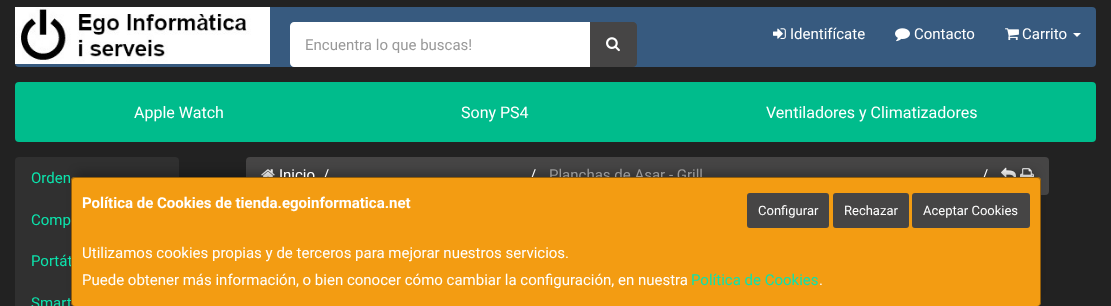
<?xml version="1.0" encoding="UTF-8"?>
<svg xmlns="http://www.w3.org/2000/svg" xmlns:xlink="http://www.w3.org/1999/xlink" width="1111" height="306">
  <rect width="100%" height="100%" fill="#222222" />
  <rect x="15" y="7" width="1081" height="60" rx="4" fill="#375a7f" />
  <image x="15" y="7" width="255" height="57" xlink:href="image1.png" />
  <image x="773" y="28" width="13" height="11" xlink:href="image2.png" />
  <image x="895" y="28" width="15" height="14" xlink:href="image3.png" />
  <image x="1005" y="28" width="14" height="13" xlink:href="image4.png" />
  <path d="M 1073 33 h 8 l -4 4 z" fill="#ffffff" />
  <path d="M 590 23 h 43 c 1.5 0 3 1.5 3 3 v 37 c 0 1.5 -1.5 3 -3 3 h -43 z" fill="#464545" stroke="#464545" stroke-width="2" />
  <path d="M 294 22 h 296 v 45 h -296 c -2 0 -4 -2 -4 -4 v -37 c 0 -2 2 -4 4 -4 z" fill="#ffffff" />
  <image x="606" y="37" width="14" height="15" xlink:href="image5.png" />
  <rect x="15" y="82" width="1081" height="60" rx="4" fill="#00bc8c" />
  <rect x="15" y="157" width="164" height="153" rx="4" fill="#303030" />
  <rect x="246" y="157" width="803" height="38" rx="4" fill="#464545" />
  <image x="261" y="169" width="14" height="8" xlink:href="image6.png" />
  <image x="1001" y="167" width="15" height="10" xlink:href="image7.png" />
  <image x="1020" y="168" width="14" height="9" xlink:href="image8.png" />
  <rect x="76" y="172" width="960" height="119" fill="#000000" fill-opacity="0.25" filter="blur(5px)" />
  <text x="790" y="39" style="font-family: Roboto; font-size: 15px; fill: #ffffff">Identifícate</text>
  <text x="914" y="39" style="font-family: Roboto; font-size: 15px; fill: #ffffff">Contacto</text>
  <text x="1022" y="39" style="font-family: Roboto; font-size: 15px; fill: #ffffff">Carrito</text>
  <text x="305" y="50" style="font-family: Roboto; font-size: 15px; fill: #999999">Encuentra lo que buscas!</text>
  <text x="134" y="118" style="font-family: Roboto; font-size: 16px; fill: #ffffff">Apple Watch</text>
  <text x="461" y="118" style="font-family: Roboto; font-size: 16px; fill: #ffffff">Sony PS4</text>
  <text x="766" y="118" style="font-family: Roboto; font-size: 16px; fill: #ffffff">Ventiladores y Climatizadores</text>
  <text x="31" y="183" style="font-family: Roboto; font-size: 15px; fill: #0ce3ac">Orden</text>
  <text x="31" y="225" style="font-family: Roboto; font-size: 15px; fill: #0ce3ac">Comp</text>
  <text x="31" y="266" style="font-family: Roboto; font-size: 15px; fill: #0ce3ac">Portát</text>
  <text x="31" y="308" style="font-family: Roboto; font-size: 15px; fill: #0ce3ac">Smart</text>
  <text x="279" y="180" style="font-family: Roboto; font-size: 15px; fill: #ffffff">Inicio</text>
  <text x="323" y="180" style="font-family: Roboto; font-size: 15px; fill: #ffffff">/</text>
  <text x="530" y="180" style="font-family: Roboto; font-size: 15px; fill: #ffffff">/</text>
  <text x="549" y="180" style="font-family: Roboto; font-size: 15px; fill: #999999">Planchas de Asar - Grill</text>
  <text x="982" y="180" style="font-family: Roboto; font-size: 15px; fill: #ffffff">/</text>
  <rect x="71" y="177" width="970" height="129" rx="4" fill="#f39c12" />
  <path d="M 75 177 h 962 c 2 0 4 2 4 4 v 121 c 0 2 -2 4 -4 4 h -962 c -2 0 -4 -2 -4 -4 v -121 c 0 -2 2 -4 4 -4 z m 0 1 h 962 c 2 0 3 1 3 3 v 121 c 0 2 -1 4 -3 4 h -962 c -2 0 -3 -2 -3 -4 v -121 c 0 -2 1 -3 3 -3 z" fill="#000000" fill-opacity="0.4" fill-rule="evenodd" />
  <text x="82" y="208" style="font-family: Roboto; font-size: 15px; font-weight: bold; fill: #ffffff">Política de Cookies de tienda.egoinformatica.net</text>
  <rect x="748" y="194" width="80" height="33" rx="2" fill="#464545" stroke="#464545" stroke-width="2" />
  <text x="758" y="215" style="font-family: Roboto; font-size: 13px; fill: #ffffff">Configurar</text>
  <rect x="834" y="194" width="74" height="33" rx="2" fill="#464545" stroke="#464545" stroke-width="2" />
  <text x="844" y="215" style="font-family: Roboto; font-size: 13px; fill: #ffffff">Rechazar</text>
  <rect x="913" y="194" width="116" height="33" rx="2" fill="#464545" stroke="#464545" stroke-width="2" />
  <text x="923" y="215" style="font-family: Roboto; font-size: 13px; fill: #ffffff">Aceptar Cookies</text>
  <text x="82" y="258" style="font-family: Roboto; font-size: 15px; fill: #ffffff">Utilizamos cookies propias y de terceros para mejorar nuestros servicios.</text>
  <text x="82" y="285" style="font-family: Roboto; font-size: 15px; fill: #ffffff">Puede obtener más información, o bien conocer cómo cambiar la configuración, en nuestra</text>
  <text x="691" y="285" style="font-family: Roboto; font-size: 15px; fill: #0ce3ac">Política de Cookies</text>
  <text x="819" y="285" style="font-family: Roboto; font-size: 15px; fill: #ffffff">.</text>
</svg>
